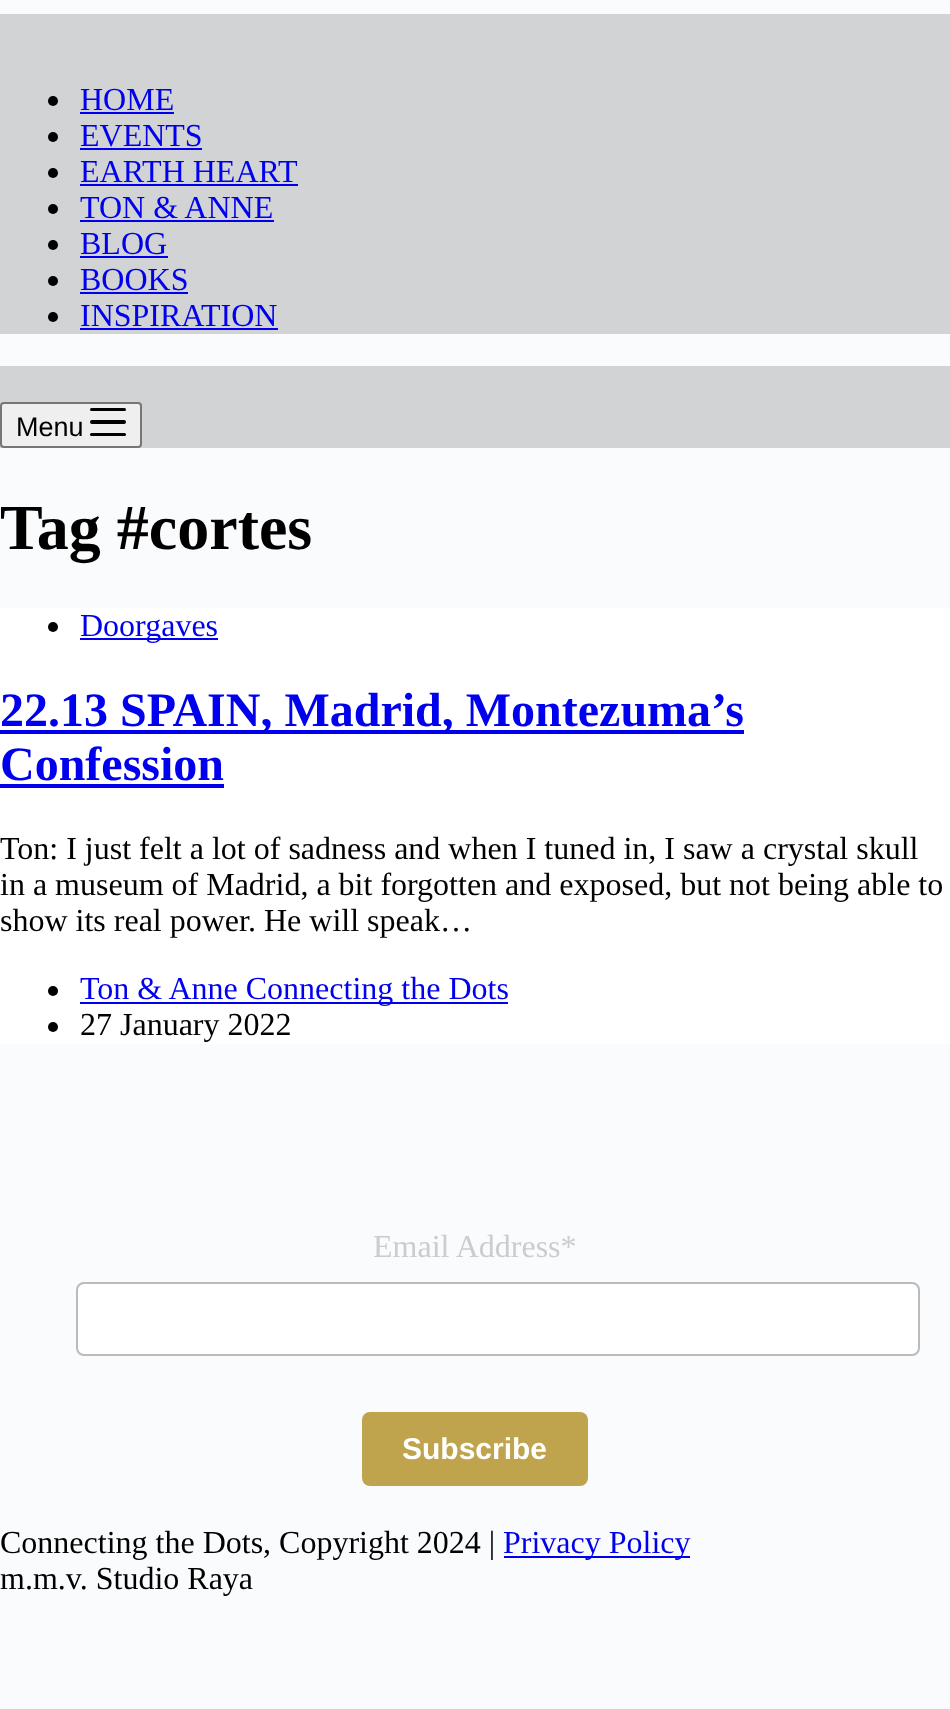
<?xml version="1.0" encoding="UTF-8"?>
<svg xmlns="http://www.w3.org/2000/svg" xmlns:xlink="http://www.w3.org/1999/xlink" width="950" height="1709">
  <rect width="100%" height="100%" fill="#fafbfc" />
  <rect y="14" width="950" height="320" fill="#d1d3d4" />
  <circle cx="53" cy="101" r="5" fill="#000000" />
  <rect x="80" y="112" width="94" height="2" fill="#0000ee" />
  <circle cx="53" cy="137" r="5" fill="#000000" />
  <rect x="80" y="148" width="122" height="2" fill="#0000ee" />
  <circle cx="53" cy="173" r="5" fill="#000000" />
  <rect x="80" y="184" width="218" height="2" fill="#0000ee" />
  <circle cx="53" cy="209" r="5" fill="#000000" />
  <rect x="80" y="220" width="194" height="2" fill="#0000ee" />
  <circle cx="53" cy="245" r="5" fill="#000000" />
  <rect x="80" y="256" width="88" height="2" fill="#0000ee" />
  <circle cx="53" cy="281" r="5" fill="#000000" />
  <rect x="80" y="292" width="108" height="2" fill="#0000ee" />
  <circle cx="53" cy="317" r="5" fill="#000000" />
  <rect x="80" y="328" width="198" height="2" fill="#0000ee" />
  <rect y="366" width="950" height="82" fill="#d2d3d4" />
  <rect x="1" y="403" width="140" height="44" rx="3" fill="#efefef" stroke="#767676" stroke-width="2" />
  <rect x="90" y="408" width="36" height="3" rx="1.5" fill="#000000" />
  <rect x="90" y="420" width="36" height="4" rx="2" fill="#000000" />
  <rect x="90" y="433" width="36" height="3" rx="1.5" fill="#000000" />
  <rect y="608" width="950" height="436" fill="#ffffff" />
  <circle cx="53" cy="627" r="5" fill="#000000" />
  <rect x="80" y="638" width="138" height="2" fill="#0000ee" />
  <rect y="730" width="744" height="4" fill="#0000ee" />
  <rect y="784" width="224" height="4" fill="#0000ee" />
  <circle cx="53" cy="991" r="5" fill="#000000" />
  <rect x="80" y="1002" width="428" height="2" fill="#0000ee" />
  <circle cx="53" cy="1027" r="5" fill="#000000" />
  <rect x="77" y="1283" width="842" height="72" rx="7" fill="#ffffff" stroke="#bbbbbb" stroke-width="2" />
  <rect x="362" y="1412" width="226" height="74" rx="8" fill="#bfa44d" />
  <rect x="504" y="1556" width="186" height="2" fill="#0000ee" />
  <text x="80" y="110" style="font-family: Liberation Serif; font-size: 32px; fill: #0000ee">HOME</text>
  <text x="80" y="146" style="font-family: Liberation Serif; font-size: 32px; fill: #0000ee">EVENTS</text>
  <text x="80" y="182" style="font-family: Liberation Serif; font-size: 32px; fill: #0000ee">EARTH HEART</text>
  <text x="80" y="218" style="font-family: Liberation Serif; font-size: 32px; fill: #0000ee">TON &amp; ANNE</text>
  <text x="80" y="254" style="font-family: Liberation Serif; font-size: 32px; fill: #0000ee">BLOG</text>
  <text x="80" y="290" style="font-family: Liberation Serif; font-size: 32px; fill: #0000ee">BOOKS</text>
  <text x="80" y="326" style="font-family: Liberation Serif; font-size: 32px; fill: #0000ee">INSPIRATION</text>
  <text x="16" y="436" style="font-family: Liberation Sans; font-size: 27px; fill: #000000">Menu</text>
  <text x="0" y="549" style="font-family: Liberation Serif; font-size: 64px; font-weight: bold; fill: #000000">Tag #cortes</text>
  <text x="80" y="636" style="font-family: Liberation Serif; font-size: 32px; fill: #0000ee">Doorgaves</text>
  <text x="0" y="726" style="font-family: Liberation Serif; font-size: 48px; font-weight: bold; fill: #0000ee">22.13 SPAIN, Madrid, Montezuma’s</text>
  <text x="0" y="780" style="font-family: Liberation Serif; font-size: 48px; font-weight: bold; fill: #0000ee">Confession</text>
  <text x="0" y="859" style="font-family: Liberation Serif; font-size: 32px; fill: #000000">Ton: I just felt a lot of sadness and when I tuned in, I saw a crystal skull</text>
  <text x="0" y="895" style="font-family: Liberation Serif; font-size: 32px; fill: #000000">in a museum of Madrid, a bit forgotten and exposed, but not being able to</text>
  <text x="0" y="931" style="font-family: Liberation Serif; font-size: 32px; fill: #000000">show its real power. He will speak…</text>
  <text x="80" y="999" style="font-family: Liberation Serif; font-size: 32px; fill: #0000ee">Ton &amp; Anne Connecting the Dots</text>
  <text x="80" y="1035" style="font-family: Liberation Serif; font-size: 32px; fill: #000000">27 January 2022</text>
  <text x="373" y="1257" style="font-family: Liberation Serif; font-size: 32px; fill: #cccccc">Email Address*</text>
  <text x="402" y="1459" style="font-family: Liberation Sans; font-size: 30px; font-weight: bold; fill: #ffffff">Subscribe</text>
  <text x="0" y="1553" style="font-family: Liberation Serif; font-size: 32px; fill: #000000">Connecting the Dots, Copyright 2024 |</text>
  <text x="503" y="1553" style="font-family: Liberation Serif; font-size: 32px; fill: #0000ee">Privacy Policy</text>
  <text x="0" y="1589" style="font-family: Liberation Serif; font-size: 32px; fill: #000000">m.m.v. Studio Raya</text>
</svg>
